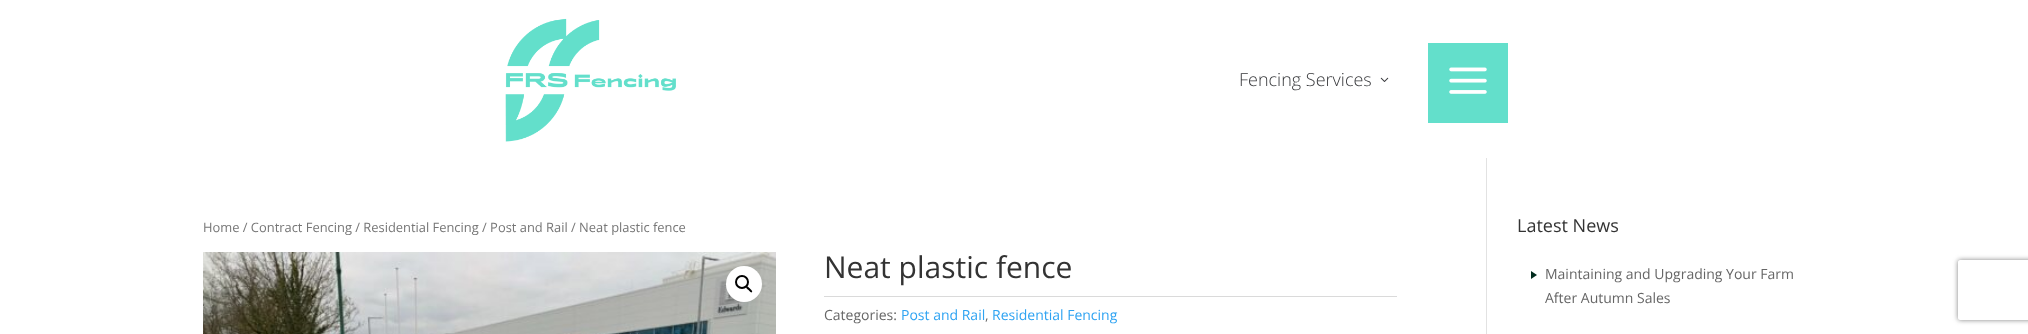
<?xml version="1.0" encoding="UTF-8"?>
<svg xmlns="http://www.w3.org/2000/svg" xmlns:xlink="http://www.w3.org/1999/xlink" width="2028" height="334">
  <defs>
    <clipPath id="clip1"><path d="M 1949 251 h 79 v 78 h -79 z m 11 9 h 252 c 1 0 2 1 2 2 v 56 c 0 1 -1 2 -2 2 h -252 c -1 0 -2 -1 -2 -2 v -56 c 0 -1 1 -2 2 -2 z" clip-rule="evenodd" /></clipPath>
  </defs>
  <rect width="100%" height="100%" fill="#ffffff" />
  <image x="505" y="18" width="171" height="124" xlink:href="image1.png" />
  <image x="1380" y="77" width="9" height="5" xlink:href="image2.png" />
  <rect x="1428" y="43" width="80" height="80" fill="#63dfcb" />
  <image x="1449" y="67" width="38" height="27" xlink:href="image3.png" />
  <rect x="1486" y="158" width="1" height="176" fill="#e2e2e2" />
  <image x="203" y="252" width="573" height="82" xlink:href="image4.png" />
  <circle cx="744" cy="284" r="18" fill="#ffffff" />
  <circle cx="742" cy="282" r="6" fill="none" stroke="#000000" stroke-width="2" />
  <path d="M 746.5 286.5 c 1 -1 2.5 1.5 3.5 2 c 0.5 1 3 2.5 2 3.5 c -1 1.5 -3 -1.5 -3.5 -2 c -0.5 -0.5 -3.5 -2.5 -2 -3.5 z" fill="#000000" />
  <rect x="824" y="296" width="573" height="1" fill="#dadada" />
  <path d="M 1531 279 v -8 l 6 4 z" fill="#002b1d" />
  <g clip-path="url(#clip1)">
    <rect x="1958" y="260" width="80" height="60" rx="2" fill="#808080" filter="blur(2.5px)" />
  </g>
  <text x="1239" y="86" style="font-family: Open Sans; font-size: 18px; font-weight: 300; fill: #37383b">Fencing Services</text>
  <text x="203" y="232" style="font-family: Open Sans; font-size: 12.9px; fill: #767676">Home / Contract Fencing / Residential Fencing / Post and Rail / Neat plastic fence</text>
  <text x="824" y="278" style="font-family: Open Sans; font-size: 30px; fill: #333333">Neat plastic fence</text>
  <text x="824" y="320" style="font-family: Open Sans; font-size: 14px; fill: #666666">Categories:</text>
  <text x="901" y="320" style="font-family: Open Sans; font-size: 14px; fill: #2ea3f2">Post and Rail</text>
  <text x="985" y="320" style="font-family: Open Sans; font-size: 14px; fill: #666666">,</text>
  <text x="992" y="320" style="font-family: Open Sans; font-size: 14px; fill: #2ea3f2">Residential Fencing</text>
  <text x="1517" y="232" style="font-family: Open Sans; font-size: 18px; fill: #333333">Latest News</text>
  <text x="1545" y="279" style="font-family: Open Sans; font-size: 14px; fill: #666666">Maintaining and Upgrading Your Farm</text>
  <text x="1545" y="303" style="font-family: Open Sans; font-size: 14px; fill: #666666">After Autumn Sales</text>
</svg>
